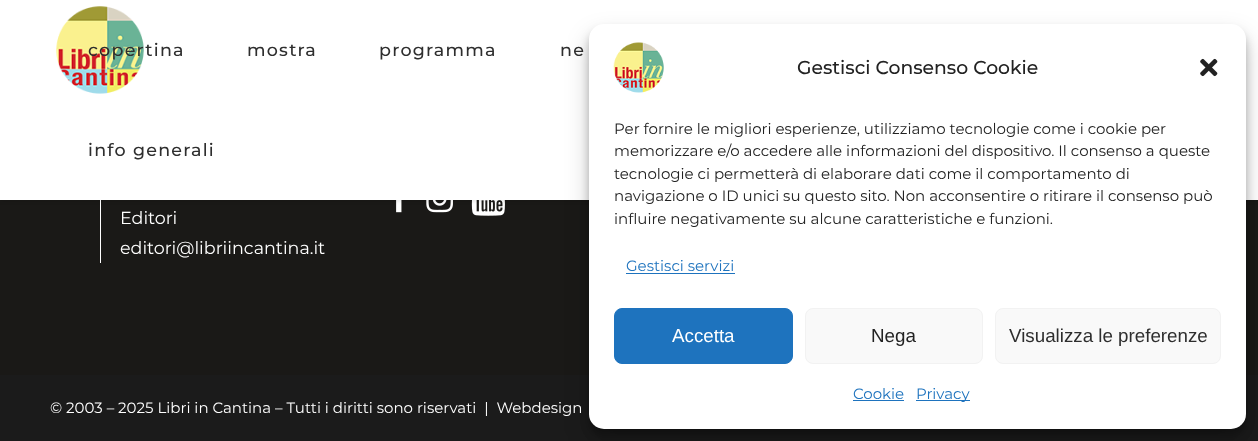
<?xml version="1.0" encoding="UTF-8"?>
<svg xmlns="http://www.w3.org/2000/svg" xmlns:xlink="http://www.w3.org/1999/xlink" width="1258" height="441">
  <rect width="100%" height="100%" fill="#1b1b1b" />
  <rect y="200" width="1258" height="175" fill="#1a1917" />
  <image x="396" y="200" width="6" height="13" xlink:href="image2.png" />
  <image x="426" y="200" width="27" height="13" xlink:href="image3.png" />
  <image x="471" y="200" width="34" height="16" xlink:href="image4.png" />
  <rect x="100" y="200" width="1" height="63" fill="#ffffff" />
  <rect y="1" width="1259" height="200" fill="#000000" fill-opacity="0.11" filter="blur(2px)" />
  <rect width="1258" height="200" fill="#ffffff" />
  <image x="56" y="6" width="88" height="88" xlink:href="image1.png" />
  <rect x="589" y="31" width="657" height="405" rx="15" fill="#000000" fill-opacity="0.23" filter="blur(4px)" />
  <rect x="589" y="36" width="657" height="405" rx="15" fill="#000000" fill-opacity="0.19" filter="blur(12.5px)" />
  <rect x="589" y="24" width="657" height="405" rx="15" fill="#ffffff" />
  <image x="613" y="42" width="51" height="51" xlink:href="image5.png" />
  <image x="1200" y="58" width="18" height="19" xlink:href="image6.png" />
  <rect x="626" y="273" width="109" height="1" fill="#1e73be" />
  <rect x="614.5" y="308.5" width="178" height="55" rx="7.5" fill="#1e73be" stroke="#1e73be" />
  <rect x="805.5" y="308.5" width="177" height="55" rx="7.5" fill="#f9f9f9" stroke="#f2f2f2" />
  <rect x="995.5" y="308.5" width="225" height="55" rx="7.5" fill="#f9f9f9" stroke="#f2f2f2" />
  <rect x="853" y="400" width="51" height="1" fill="#1e73be" />
  <rect x="916" y="400" width="54" height="1" fill="#1e73be" />
  <text x="88" y="56" style="font-family: Montserrat; font-size: 17.5px; font-weight: 500; letter-spacing: 1.25px; fill: #2e2e2e">copertina</text>
  <text x="247" y="56" style="font-family: Montserrat; font-size: 17.5px; font-weight: 500; letter-spacing: 1.25px; fill: #2e2e2e">mostra</text>
  <text x="379" y="56" style="font-family: Montserrat; font-size: 17.5px; font-weight: 500; letter-spacing: 1.25px; fill: #2e2e2e">programma</text>
  <text x="560" y="56" style="font-family: Montserrat; font-size: 17.5px; font-weight: 500; letter-spacing: 1.25px; fill: #2e2e2e">ne</text>
  <text x="88" y="156" style="font-family: Montserrat; font-size: 17.5px; font-weight: 500; letter-spacing: 1.25px; fill: #2e2e2e">info generali</text>
  <text x="120" y="224" style="font-family: Montserrat; font-size: 17.5px; fill: #ffffff">Editori</text>
  <text x="120" y="254" style="font-family: Montserrat; font-size: 17.5px; fill: #ffffff">editori@libriincantina.it</text>
  <text x="50" y="413" style="font-family: Montserrat; font-size: 15px; fill: #ffffff" xml:space="preserve">© 2003 – 2025 Libri in Cantina – Tutti i diritti sono riservati  |  Webdesign</text>
  <text x="797" y="74" style="font-family: Montserrat; font-size: 18.75px; font-weight: 500; fill: #222222">Gestisci Consenso Cookie</text>
  <text x="614" y="134" style="font-family: Montserrat; font-size: 15px; fill: #222222">Per fornire le migliori esperienze, utilizziamo tecnologie come i cookie per</text>
  <text x="614" y="156" style="font-family: Montserrat; font-size: 15px; fill: #222222">memorizzare e/o accedere alle informazioni del dispositivo. Il consenso a queste</text>
  <text x="614" y="179" style="font-family: Montserrat; font-size: 15px; fill: #222222">tecnologie ci permetterà di elaborare dati come il comportamento di</text>
  <text x="614" y="201" style="font-family: Montserrat; font-size: 15px; fill: #222222">navigazione o ID unici su questo sito. Non acconsentire o ritirare il consenso può</text>
  <text x="614" y="224" style="font-family: Montserrat; font-size: 15px; fill: #222222">influire negativamente su alcune caratteristiche e funzioni.</text>
  <text x="626" y="271" style="font-family: Montserrat; font-size: 15px; fill: #1e73be">Gestisci servizi</text>
  <text x="672" y="342" style="font-family: Liberation Sans; font-size: 18.75px; fill: #ffffff">Accetta</text>
  <text x="871" y="342" style="font-family: Liberation Sans; font-size: 18.75px; fill: #222222">Nega</text>
  <text x="1009" y="342" style="font-family: Liberation Sans; font-size: 18.75px; fill: #2e2e2e">Visualizza le preferenze</text>
  <text x="853" y="399" style="font-family: Montserrat; font-size: 15px; fill: #1e73be">Cookie</text>
  <text x="916" y="399" style="font-family: Montserrat; font-size: 15px; fill: #1e73be">Privacy</text>
</svg>
